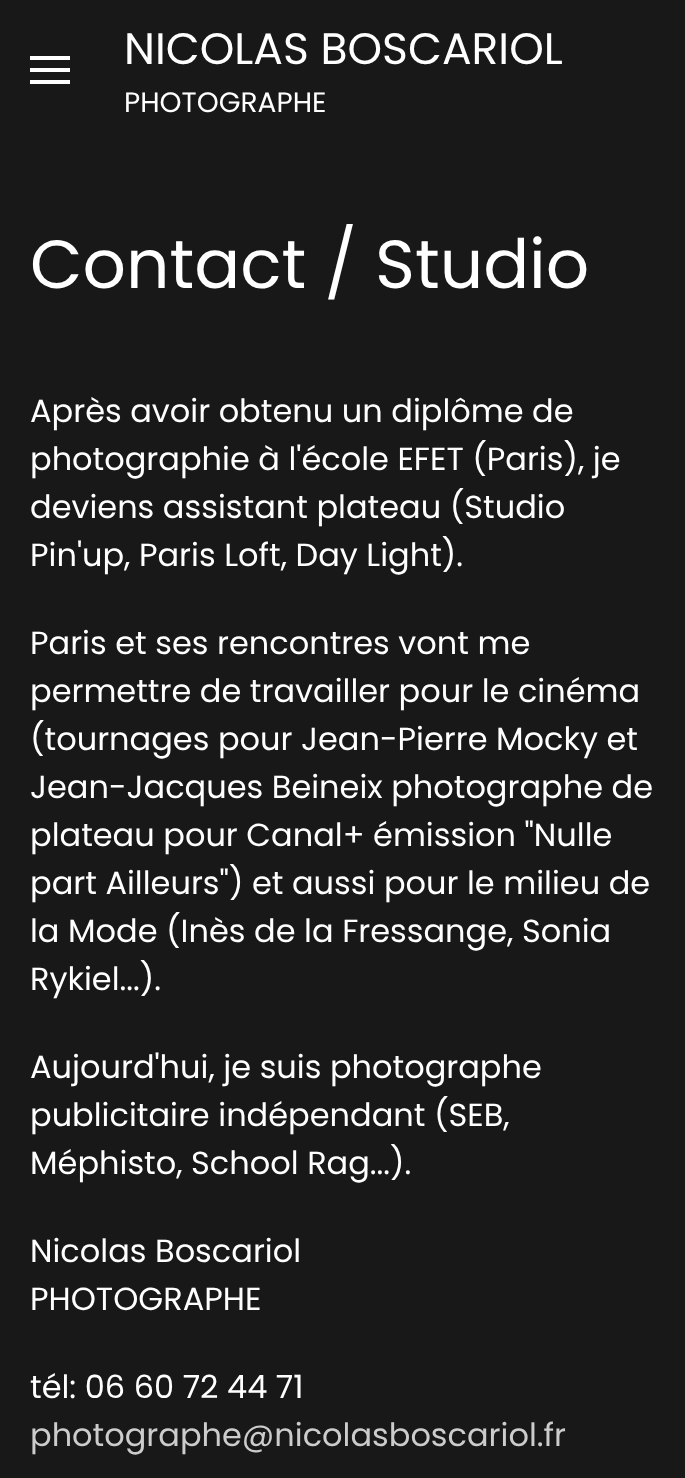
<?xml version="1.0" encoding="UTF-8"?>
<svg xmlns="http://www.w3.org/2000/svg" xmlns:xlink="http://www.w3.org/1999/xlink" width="685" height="1478">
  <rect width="100%" height="100%" fill="#181818" />
  <rect x="30" y="56" width="40" height="4" fill="#ffffff" />
  <rect x="30" y="68" width="40" height="4" fill="#ffffff" />
  <rect x="30" y="80" width="40" height="4" fill="#ffffff" />
  <text x="124" y="64" style="font-family: Poppins; font-size: 44px; fill: #ffffff">NICOLAS BOSCARIOL</text>
  <text x="124" y="112" style="font-family: Poppins; font-size: 28px; fill: #ffffff">PHOTOGRAPHE</text>
  <text x="30" y="288" style="font-family: Poppins; font-size: 68px; fill: #ffffff">Contact / Studio</text>
  <text x="30" y="422" style="font-family: Poppins; font-size: 32px; fill: #ffffff">Après avoir obtenu un diplôme de</text>
  <text x="30" y="470" style="font-family: Poppins; font-size: 32px; fill: #ffffff">photographie à l'école EFET (Paris), je</text>
  <text x="30" y="518" style="font-family: Poppins; font-size: 32px; fill: #ffffff">deviens assistant plateau (Studio</text>
  <text x="30" y="566" style="font-family: Poppins; font-size: 32px; fill: #ffffff">Pin'up, Paris Loft, Day Light).</text>
  <text x="30" y="654" style="font-family: Poppins; font-size: 32px; fill: #ffffff">Paris et ses rencontres vont me</text>
  <text x="30" y="702" style="font-family: Poppins; font-size: 32px; fill: #ffffff">permettre de travailler pour le cinéma</text>
  <text x="30" y="750" style="font-family: Poppins; font-size: 32px; fill: #ffffff">(tournages pour Jean-Pierre Mocky et</text>
  <text x="30" y="798" style="font-family: Poppins; font-size: 32px; fill: #ffffff">Jean-Jacques Beineix photographe de</text>
  <text x="30" y="846" style="font-family: Poppins; font-size: 32px; fill: #ffffff">plateau pour Canal+ émission "Nulle</text>
  <text x="30" y="894" style="font-family: Poppins; font-size: 32px; fill: #ffffff">part Ailleurs") et aussi pour le milieu de</text>
  <text x="30" y="942" style="font-family: Poppins; font-size: 32px; fill: #ffffff">la Mode (Inès de la Fressange, Sonia</text>
  <text x="30" y="990" style="font-family: Poppins; font-size: 32px; fill: #ffffff">Rykiel...).</text>
  <text x="30" y="1078" style="font-family: Poppins; font-size: 32px; fill: #ffffff">Aujourd'hui, je suis photographe</text>
  <text x="30" y="1126" style="font-family: Poppins; font-size: 32px; fill: #ffffff">publicitaire indépendant (SEB,</text>
  <text x="30" y="1174" style="font-family: Poppins; font-size: 32px; fill: #ffffff">Méphisto, School Rag...).</text>
  <text x="30" y="1262" style="font-family: Poppins; font-size: 32px; fill: #ffffff">Nicolas Boscariol</text>
  <text x="30" y="1310" style="font-family: Poppins; font-size: 32px; fill: #ffffff">PHOTOGRAPHE</text>
  <text x="30" y="1398" style="font-family: Poppins; font-size: 32px; fill: #ffffff">tél: 06 60 72 44 71</text>
  <text x="30" y="1446" style="font-family: Poppins; font-size: 32px; fill: #cccccc">photographe@nicolasboscariol.fr</text>
</svg>
